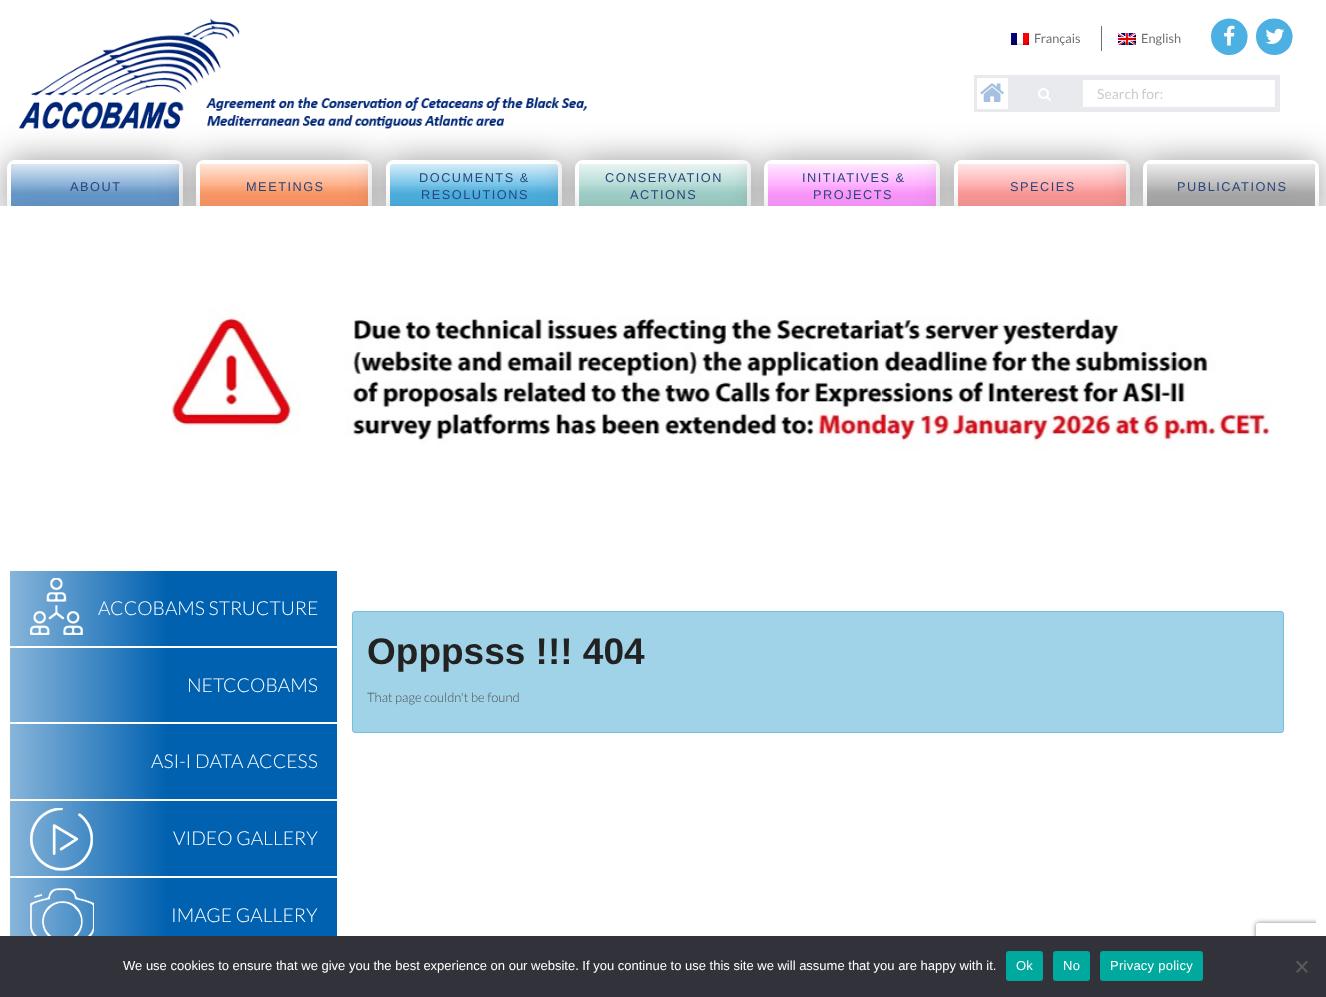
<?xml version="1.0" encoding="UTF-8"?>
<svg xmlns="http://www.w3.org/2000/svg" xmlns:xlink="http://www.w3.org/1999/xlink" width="1326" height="997">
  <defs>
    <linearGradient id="g1" gradientUnits="userSpaceOnUse" x1="95" y1="155" x2="95" y2="209"><stop offset="0" stop-color="#ffffff" /><stop offset="0.72" stop-color="#ffffff" stop-opacity="0" /></linearGradient>
    <linearGradient id="g2" gradientUnits="userSpaceOnUse" x1="284" y1="155" x2="284" y2="209"><stop offset="0" stop-color="#ffffff" /><stop offset="0.72" stop-color="#ffffff" stop-opacity="0" /></linearGradient>
    <linearGradient id="g3" gradientUnits="userSpaceOnUse" x1="474" y1="155" x2="474" y2="209"><stop offset="0" stop-color="#ffffff" /><stop offset="0.72" stop-color="#ffffff" stop-opacity="0" /></linearGradient>
    <linearGradient id="g4" gradientUnits="userSpaceOnUse" x1="663" y1="155" x2="663" y2="209"><stop offset="0" stop-color="#ffffff" /><stop offset="0.72" stop-color="#ffffff" stop-opacity="0" /></linearGradient>
    <linearGradient id="g5" gradientUnits="userSpaceOnUse" x1="852" y1="155" x2="852" y2="209"><stop offset="0" stop-color="#ffffff" /><stop offset="0.72" stop-color="#ffffff" stop-opacity="0" /></linearGradient>
    <linearGradient id="g6" gradientUnits="userSpaceOnUse" x1="1042" y1="155" x2="1042" y2="209"><stop offset="0" stop-color="#ffffff" /><stop offset="0.72" stop-color="#ffffff" stop-opacity="0" /></linearGradient>
    <linearGradient id="g7" gradientUnits="userSpaceOnUse" x1="1231" y1="155" x2="1231" y2="209"><stop offset="0" stop-color="#ffffff" /><stop offset="0.72" stop-color="#ffffff" stop-opacity="0" /></linearGradient>
    <clipPath id="clip1"><rect x="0" y="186" width="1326" height="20" /></clipPath>
    <clipPath id="clip2"><path d="M 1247 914 h 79 v 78 h -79 z m 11 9 h 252 c 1 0 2 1 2 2 v 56 c 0 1 -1 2 -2 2 h -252 c -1 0 -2 -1 -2 -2 v -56 c 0 -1 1 -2 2 -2 z" clip-rule="evenodd" /></clipPath>
    <linearGradient id="g8" gradientUnits="userSpaceOnUse" x1="10" y1="609" x2="337" y2="609"><stop offset="0" stop-color="#88b5da" /><stop offset="0.48" stop-color="#0061b0" /></linearGradient>
    <linearGradient id="g9" gradientUnits="userSpaceOnUse" x1="10" y1="685" x2="337" y2="685"><stop offset="0" stop-color="#88b5da" /><stop offset="0.48" stop-color="#0061b0" /></linearGradient>
    <linearGradient id="g10" gradientUnits="userSpaceOnUse" x1="10" y1="762" x2="337" y2="762"><stop offset="0" stop-color="#88b5da" /><stop offset="0.48" stop-color="#0061b0" /></linearGradient>
    <linearGradient id="g11" gradientUnits="userSpaceOnUse" x1="10" y1="839" x2="337" y2="839"><stop offset="0" stop-color="#88b5da" /><stop offset="0.48" stop-color="#0061b0" /></linearGradient>
    <linearGradient id="g12" gradientUnits="userSpaceOnUse" x1="10" y1="916" x2="337" y2="916"><stop offset="0" stop-color="#88b5da" /><stop offset="0.48" stop-color="#0061b0" /></linearGradient>
  </defs>
  <rect width="100%" height="100%" fill="#ffffff" />
  <image x="19" y="18" width="569" height="111" xlink:href="image1.png" />
  <rect x="1101" y="26" width="1" height="25" fill="#707070" />
  <image x="1011" y="33" width="18" height="12" xlink:href="image2.png" />
  <image x="1118" y="33" width="18" height="12" xlink:href="image3.png" />
  <path d="M 1245 27.5 c 2 3 3 7 2.5 10.5 c -1 18 -25 23.5 -34 8 c -2 -3 -2.5 -7 -2.5 -10.5 c 1 -18 25 -23.5 34 -8 z" fill="#4cb1e2" />
  <image x="1224" y="25" width="11" height="21" xlink:href="image4.png" />
  <path d="M 1290 27.5 c 2 3 3 7 2.5 10.5 c -1 18 -25 23.5 -34 8 c -2 -3 -2.5 -7 -2.5 -10.5 c 1 -18 25 -23.5 34 -8 z" fill="#4cb1e2" />
  <image x="1265" y="28" width="20" height="16" xlink:href="image5.png" />
  <rect x="7" y="160" width="176" height="53" rx="8" fill="#333333" fill-opacity="0.5" filter="blur(17px)" />
  <rect x="9" y="162" width="172" height="49" rx="6" fill="none" stroke="#ffffff" stroke-width="4" />
  <rect x="11" y="164" width="168" height="45" rx="3" fill="#6699cc" />
  <rect x="11" y="164" width="168" height="45" rx="3" fill="url(#g1)" />
  <rect x="196" y="160" width="176" height="53" rx="8" fill="#333333" fill-opacity="0.5" filter="blur(17px)" />
  <rect x="198" y="162" width="172" height="49" rx="6" fill="none" stroke="#ffffff" stroke-width="4" />
  <rect x="200" y="164" width="168" height="45" rx="3" fill="#ff9966" />
  <rect x="200" y="164" width="168" height="45" rx="3" fill="url(#g2)" />
  <rect x="386" y="160" width="176" height="53" rx="8" fill="#333333" fill-opacity="0.5" filter="blur(17px)" />
  <rect x="388" y="162" width="172" height="49" rx="6" fill="#4cb1e2" stroke="#ffffff" stroke-width="4" />
  <rect x="390" y="164" width="168" height="45" rx="3" fill="url(#g3)" />
  <rect x="575" y="160" width="176" height="53" rx="8" fill="#333333" fill-opacity="0.5" filter="blur(17px)" />
  <rect x="577" y="162" width="172" height="49" rx="6" fill="none" stroke="#ffffff" stroke-width="4" />
  <rect x="579" y="164" width="168" height="45" rx="3" fill="#a0d2ca" />
  <rect x="579" y="164" width="168" height="45" rx="3" fill="url(#g4)" />
  <rect x="764" y="160" width="176" height="53" rx="8" fill="#333333" fill-opacity="0.5" filter="blur(17px)" />
  <rect x="1080.5" y="77.5" width="197" height="32" fill="none" stroke="#e9eaee" stroke-width="5" />
  <rect x="766" y="162" width="172" height="49" rx="6" fill="none" stroke="#ffffff" stroke-width="4" />
  <rect x="768" y="164" width="168" height="45" rx="3" fill="#ff99ff" />
  <rect x="768" y="164" width="168" height="45" rx="3" fill="url(#g5)" />
  <rect x="954" y="160" width="176" height="53" rx="8" fill="#333333" fill-opacity="0.5" filter="blur(17px)" />
  <rect x="975.5" y="76.5" width="34" height="34" fill="none" stroke="#e9eaee" stroke-width="3" />
  <image x="980" y="83" width="24" height="19" xlink:href="image6.png" />
  <rect x="1011" y="75" width="67" height="37" fill="#e9eaee" />
  <image x="1038" y="88" width="13" height="13" xlink:href="image7.png" />
  <rect x="956" y="162" width="172" height="49" rx="6" fill="none" stroke="#ffffff" stroke-width="4" />
  <rect x="958" y="164" width="168" height="45" rx="3" fill="#ff9999" />
  <rect x="958" y="164" width="168" height="45" rx="3" fill="url(#g6)" />
  <rect x="1143" y="160" width="176" height="53" rx="8" fill="#333333" fill-opacity="0.5" filter="blur(17px)" />
  <rect x="1145" y="162" width="172" height="49" rx="6" fill="none" stroke="#ffffff" stroke-width="4" />
  <rect x="1147" y="164" width="168" height="45" rx="3" fill="#aaaaaa" />
  <rect x="1147" y="164" width="168" height="45" rx="3" fill="url(#g7)" />
  <g clip-path="url(#clip1)">
    <rect y="228" width="1326" height="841" fill="#333333" fill-opacity="0.5" filter="blur(24px)" />
  </g>
  <g clip-path="url(#clip2)">
    <rect x="1256" y="923" width="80" height="60" rx="2" fill="#808080" filter="blur(2.5px)" />
  </g>
  <rect x="5" y="211" width="1316" height="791" fill="none" stroke="#ffffff" stroke-width="10" />
  <image x="10" y="216" width="1306" height="235" xlink:href="image8.png" />
  <rect x="10" y="571" width="327" height="75" fill="url(#g8)" />
  <image x="30" y="578" width="53" height="57" xlink:href="image9.png" />
  <rect x="10" y="648" width="327" height="74" fill="url(#g9)" />
  <rect x="10" y="724" width="327" height="75" fill="url(#g10)" />
  <rect x="10" y="801" width="327" height="75" fill="url(#g11)" />
  <image x="30" y="808" width="63" height="63" xlink:href="image10.png" />
  <rect x="10" y="878" width="327" height="58" fill="url(#g12)" />
  <image x="30" y="888" width="64" height="48" xlink:href="image11.png" />
  <rect x="352.5" y="611.5" width="931" height="121" rx="2.5" fill="#a0d3e8" stroke="#74bfdd" />
  <rect y="936" width="1326" height="61" fill="#32323a" />
  <rect x="1006" y="951" width="37" height="30" rx="3" fill="#00a99d" />
  <rect x="1053" y="951" width="37" height="30" rx="3" fill="#00a99d" />
  <rect x="1100" y="951" width="103" height="30" rx="3" fill="#00a99d" />
  <path d="M 1306.5 960.5 l 1.5 1.5 l -10.5 11 l -1.5 -1.5 z" fill="#59595d" />
  <path d="M 1296 962 l 1.5 -1.5 l 10.5 11 l -1.5 1.5 z" fill="#59595d" />
  <text x="1034" y="43" style="font-family: Lato; font-size: 12.75px; fill: #707070">Français</text>
  <text x="1141" y="43" style="font-family: Lato; font-size: 12.75px; fill: #707070">English</text>
  <text x="1097" y="99" style="font-family: Lato; font-size: 14px; fill: #cccccc">Search for:</text>
  <text x="70" y="191" style="font-family: Liberation Sans; font-size: 12.75px; letter-spacing: 1.5px; fill: #29467b">ABOUT</text>
  <text x="246" y="191" style="font-family: Liberation Sans; font-size: 12.75px; letter-spacing: 1.5px; fill: #29467b">MEETINGS</text>
  <text x="419" y="182" style="font-family: Liberation Sans; font-size: 12.75px; letter-spacing: 1.5px; fill: #29467b">DOCUMENTS &amp;</text>
  <text x="421" y="199" style="font-family: Liberation Sans; font-size: 12.75px; letter-spacing: 1.5px; fill: #29467b">RESOLUTIONS</text>
  <text x="605" y="182" style="font-family: Liberation Sans; font-size: 12.75px; letter-spacing: 1.5px; fill: #29467b">CONSERVATION</text>
  <text x="630" y="199" style="font-family: Liberation Sans; font-size: 12.75px; letter-spacing: 1.5px; fill: #29467b">ACTIONS</text>
  <text x="802" y="182" style="font-family: Liberation Sans; font-size: 12.75px; letter-spacing: 1.5px; fill: #29467b">INITIATIVES &amp;</text>
  <text x="813" y="199" style="font-family: Liberation Sans; font-size: 12.75px; letter-spacing: 1.5px; fill: #29467b">PROJECTS</text>
  <text x="1010" y="191" style="font-family: Liberation Sans; font-size: 12.75px; letter-spacing: 1.5px; fill: #29467b">SPECIES</text>
  <text x="1177" y="191" style="font-family: Liberation Sans; font-size: 12.75px; letter-spacing: 1.5px; fill: #29467b">PUBLICATIONS</text>
  <text x="98" y="615" style="font-family: Lato; font-size: 19.25px; font-weight: 300; fill: #ffffff">ACCOBAMS STRUCTURE</text>
  <text x="187" y="692" style="font-family: Lato; font-size: 19.25px; font-weight: 300; fill: #ffffff">NETCCOBAMS</text>
  <text x="151" y="768" style="font-family: Lato; font-size: 19.25px; font-weight: 300; fill: #ffffff">ASI-I DATA ACCESS</text>
  <text x="173" y="845" style="font-family: Lato; font-size: 19.25px; font-weight: 300; fill: #ffffff">VIDEO GALLERY</text>
  <text x="171" y="922" style="font-family: Lato; font-size: 19.25px; font-weight: 300; fill: #ffffff">IMAGE GALLERY</text>
  <text x="367" y="664" style="font-family: Liberation Sans; font-size: 37px; font-weight: bold; fill: #222222">Opppsss !!! 404</text>
  <text x="367" y="702" style="font-family: Lato; font-size: 13px; font-weight: 300; fill: #4f4f4f">That page couldn't be found</text>
  <text x="123" y="970" style="font-family: Liberation Sans; font-size: 13px; fill: #ffffff">We use cookies to ensure that we give you the best experience on our website. If you continue to use this site we will assume that you are happy with it.</text>
  <text x="1016" y="970" style="font-family: Liberation Sans; font-size: 13px; letter-spacing: 0.25px; fill: #ffffff">Ok</text>
  <text x="1063" y="970" style="font-family: Liberation Sans; font-size: 13px; letter-spacing: 0.25px; fill: #ffffff">No</text>
  <text x="1110" y="970" style="font-family: Liberation Sans; font-size: 13px; letter-spacing: 0.25px; fill: #ffffff">Privacy policy</text>
</svg>
